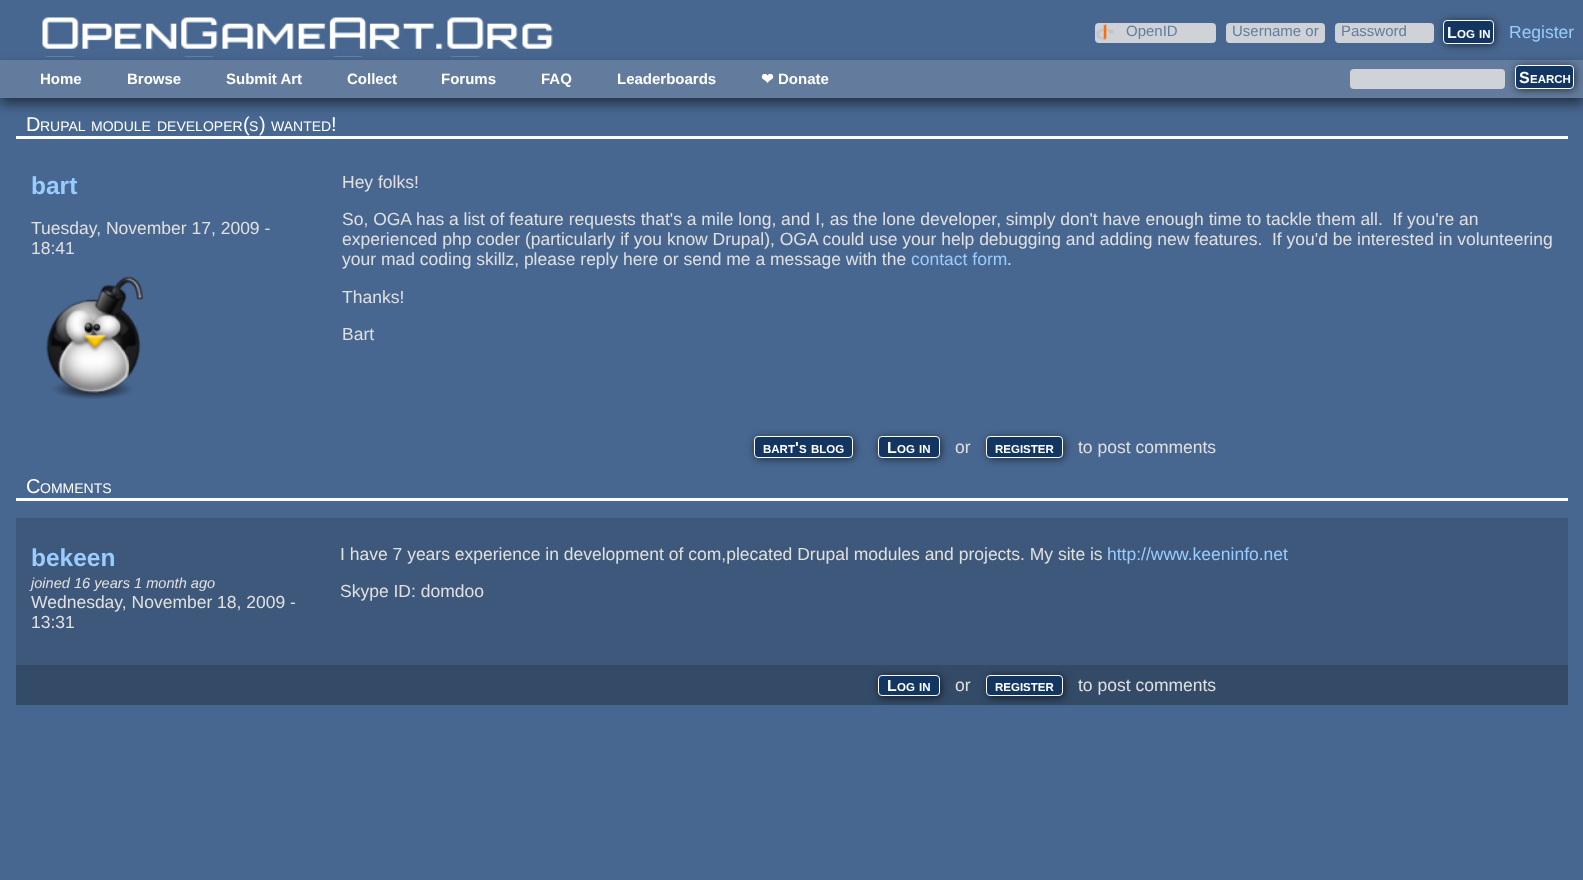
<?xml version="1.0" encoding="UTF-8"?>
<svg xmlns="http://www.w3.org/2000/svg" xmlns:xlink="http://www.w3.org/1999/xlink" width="1583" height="880">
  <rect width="100%" height="100%" fill="#486790" />
  <image x="42" y="17" width="511" height="40" xlink:href="image1.png" />
  <rect x="1095" y="23" width="121" height="20" rx="4" fill="#cfd3d8" />
  <image x="1096" y="23" width="18" height="18" xlink:href="image2.png" />
  <rect x="1226" y="23" width="99" height="20" rx="4" fill="#cfd3d8" />
  <rect x="1444" y="21" width="51" height="24" rx="4" fill="#000000" fill-opacity="0.6" filter="blur(4px)" />
  <rect x="1335" y="23" width="99" height="20" rx="4" fill="#cfd3d8" />
  <rect x="1443.5" y="20.5" width="50" height="23" rx="3.5" fill="#133562" stroke="#ffffff" />
  <rect y="66" width="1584" height="38" fill="#000000" fill-opacity="0.5" filter="blur(6px)" />
  <rect y="60" width="1583" height="38" fill="#637c9d" />
  <rect x="1350" y="69" width="155" height="20" rx="4" fill="#cfd3d8" />
  <rect x="1516" y="66" width="59" height="24" rx="4" fill="#000000" fill-opacity="0.6" filter="blur(4px)" />
  <rect x="1515.5" y="65.5" width="58" height="23" rx="3.5" fill="#133562" stroke="#ffffff" />
  <rect x="16" y="136" width="1552" height="3" fill="#ffffff" />
  <image x="46" y="276" width="98" height="123" xlink:href="image3.png" />
  <rect x="755" y="438" width="99" height="21" rx="4" fill="#000000" fill-opacity="0.6" filter="blur(4px)" />
  <rect x="754.5" y="436.5" width="98" height="21" rx="3.5" fill="#133562" stroke="#ffffff" />
  <rect x="879" y="438" width="62" height="21" rx="4" fill="#000000" fill-opacity="0.6" filter="blur(4px)" />
  <rect x="878.5" y="436.5" width="61" height="21" rx="3.5" fill="#133562" stroke="#ffffff" />
  <rect x="988" y="438" width="76" height="21" rx="4" fill="#000000" fill-opacity="0.6" filter="blur(4px)" />
  <rect x="986.5" y="436.5" width="76" height="21" rx="3.5" fill="#133562" stroke="#ffffff" />
  <rect x="16" y="498" width="1552" height="3" fill="#ffffff" />
  <rect x="16" y="518" width="1552" height="147" fill="#3d587a" />
  <rect x="16" y="665" width="1552" height="40" fill="#344b68" />
  <rect x="879" y="676" width="62" height="22" rx="4" fill="#000000" fill-opacity="0.6" filter="blur(4px)" />
  <rect x="878.5" y="675.5" width="61" height="20" rx="3.5" fill="#133562" stroke="#ffffff" />
  <rect x="988" y="676" width="76" height="22" rx="4" fill="#000000" fill-opacity="0.6" filter="blur(4px)" />
  <rect x="986.5" y="675.5" width="76" height="20" rx="3.5" fill="#133562" stroke="#ffffff" />
  <text x="1126" y="36" style="font-family: Liberation Sans; font-size: 15px; fill: #637c9d">OpenID</text>
  <text x="1232" y="36" style="font-family: Liberation Sans; font-size: 15px; fill: #637c9d">Username or</text>
  <text x="1341" y="36" style="font-family: Liberation Sans; font-size: 15px; fill: #637c9d">Password</text>
  <text x="1447" y="38" style="font-family: Liberation Sans; font-size: 16px; font-weight: bold; fill: #ffffff">L</text>
  <text x="1457" y="38" style="font-family: Liberation Sans; font-size: 11.5px; font-weight: bold; fill: #ffffff">OG</text>
  <text x="1479" y="38" style="font-family: Liberation Sans; font-size: 11.5px; font-weight: bold; fill: #ffffff">IN</text>
  <text x="1509" y="38" style="font-family: Liberation Sans; font-size: 17.5px; fill: #99ccff">Register</text>
  <text x="40" y="84" style="font-family: Liberation Sans; font-size: 15px; font-weight: bold; fill: #ffffff">Home</text>
  <text x="127" y="84" style="font-family: Liberation Sans; font-size: 15px; font-weight: bold; fill: #ffffff">Browse</text>
  <text x="226" y="84" style="font-family: Liberation Sans; font-size: 15px; font-weight: bold; fill: #ffffff">Submit Art</text>
  <text x="347" y="84" style="font-family: Liberation Sans; font-size: 15px; font-weight: bold; fill: #ffffff">Collect</text>
  <text x="441" y="84" style="font-family: Liberation Sans; font-size: 15px; font-weight: bold; fill: #ffffff">Forums</text>
  <text x="541" y="84" style="font-family: Liberation Sans; font-size: 15px; font-weight: bold; fill: #ffffff">FAQ</text>
  <text x="617" y="84" style="font-family: Liberation Sans; font-size: 15px; font-weight: bold; fill: #ffffff">Leaderboards</text>
  <text x="761" y="84" style="font-family: DejaVu Sans; font-size: 15px; font-weight: bold; fill: #ffffff">❤</text>
  <text x="778" y="84" style="font-family: Liberation Sans; font-size: 15px; font-weight: bold; fill: #ffffff">Donate</text>
  <text x="1519" y="83" style="font-family: Liberation Sans; font-size: 16px; font-weight: bold; fill: #ffffff">S</text>
  <text x="1530" y="83" style="font-family: Liberation Sans; font-size: 11.5px; font-weight: bold; fill: #ffffff">EARCH</text>
  <text x="26" y="131" style="font-family: Liberation Sans; font-size: 20px; fill: #ffffff">D</text>
  <text x="40" y="131" style="font-family: Liberation Sans; font-size: 14px; fill: #ffffff">RUPAL</text>
  <text x="91" y="131" style="font-family: Liberation Sans; font-size: 14px; fill: #ffffff">MODULE</text>
  <text x="157" y="131" style="font-family: Liberation Sans; font-size: 14px; fill: #ffffff">DEVELOPER</text>
  <text x="243" y="131" style="font-family: Liberation Sans; font-size: 20px; fill: #ffffff">(</text>
  <text x="249" y="131" style="font-family: Liberation Sans; font-size: 14px; fill: #ffffff">S</text>
  <text x="259" y="131" style="font-family: Liberation Sans; font-size: 20px; fill: #ffffff">)</text>
  <text x="271" y="131" style="font-family: Liberation Sans; font-size: 14px; fill: #ffffff">WANTED</text>
  <text x="331" y="131" style="font-family: Liberation Sans; font-size: 20px; fill: #ffffff">!</text>
  <text x="31" y="194" style="font-family: Liberation Sans; font-size: 24.5px; font-weight: bold; fill: #99ccff">bart</text>
  <text x="31" y="234" style="font-family: Liberation Sans; font-size: 17.5px; fill: #e0e0e0">Tuesday, November 17, 2009 -</text>
  <text x="31" y="254" style="font-family: Liberation Sans; font-size: 17.5px; fill: #e0e0e0">18:41</text>
  <text x="342" y="188" style="font-family: Liberation Sans; font-size: 17.5px; fill: #e0e0e0">Hey folks!</text>
  <text x="342" y="225" style="font-family: Liberation Sans; font-size: 17.5px; fill: #e0e0e0" xml:space="preserve">So, OGA has a list of feature requests that's a mile long, and I, as the lone developer, simply don't have enough time to tackle them all.  If you're an</text>
  <text x="342" y="245" style="font-family: Liberation Sans; font-size: 17.5px; fill: #e0e0e0" xml:space="preserve">experienced php coder (particularly if you know Drupal), OGA could use your help debugging and adding new features.  If you'd be interested in volunteering</text>
  <text x="342" y="265" style="font-family: Liberation Sans; font-size: 17.5px; fill: #e0e0e0">your mad coding skillz, please reply here or send me a message with the</text>
  <text x="911" y="265" style="font-family: Liberation Sans; font-size: 17.5px; fill: #99ccff">contact form</text>
  <text x="1007" y="265" style="font-family: Liberation Sans; font-size: 17.5px; fill: #e0e0e0">.</text>
  <text x="342" y="303" style="font-family: Liberation Sans; font-size: 17.5px; fill: #e0e0e0">Thanks!</text>
  <text x="342" y="340" style="font-family: Liberation Sans; font-size: 17.5px; fill: #e0e0e0">Bart</text>
  <text x="763" y="453" style="font-family: Liberation Sans; font-size: 11.5px; font-weight: bold; fill: #ffffff">BART</text>
  <text x="795" y="453" style="font-family: Liberation Sans; font-size: 16px; font-weight: bold; fill: #ffffff">'</text>
  <text x="799" y="453" style="font-family: Liberation Sans; font-size: 11.5px; font-weight: bold; fill: #ffffff">S</text>
  <text x="811" y="453" style="font-family: Liberation Sans; font-size: 11.5px; font-weight: bold; fill: #ffffff">BLOG</text>
  <text x="887" y="453" style="font-family: Liberation Sans; font-size: 16px; font-weight: bold; fill: #ffffff">L</text>
  <text x="897" y="453" style="font-family: Liberation Sans; font-size: 11.5px; font-weight: bold; fill: #ffffff">OG</text>
  <text x="919" y="453" style="font-family: Liberation Sans; font-size: 11.5px; font-weight: bold; fill: #ffffff">IN</text>
  <text x="955" y="453" style="font-family: Liberation Sans; font-size: 17.5px; fill: #e0e0e0">or</text>
  <text x="995" y="453" style="font-family: Liberation Sans; font-size: 11.5px; font-weight: bold; fill: #ffffff">REGISTER</text>
  <text x="1078" y="453" style="font-family: Liberation Sans; font-size: 17.5px; fill: #e0e0e0">to post comments</text>
  <text x="26" y="493" style="font-family: Liberation Sans; font-size: 20px; fill: #ffffff">C</text>
  <text x="40" y="493" style="font-family: Liberation Sans; font-size: 14px; fill: #ffffff">OMMENTS</text>
  <text x="31" y="566" style="font-family: Liberation Sans; font-size: 24.5px; font-weight: bold; fill: #99ccff">bekeen</text>
  <text x="31" y="588" style="font-family: Liberation Sans; font-size: 14.6px; font-style: italic; fill: #e0e0e0">joined 16 years 1 month ago</text>
  <text x="31" y="608" style="font-family: Liberation Sans; font-size: 17.5px; fill: #e0e0e0">Wednesday, November 18, 2009 -</text>
  <text x="31" y="628" style="font-family: Liberation Sans; font-size: 17.5px; fill: #e0e0e0">13:31</text>
  <text x="340" y="560" style="font-family: Liberation Sans; font-size: 17.5px; fill: #e0e0e0">I have 7 years experience in development of com,plecated Drupal modules and projects. My site is</text>
  <text x="1107" y="560" style="font-family: Liberation Sans; font-size: 17.5px; fill: #99ccff">http://www.keeninfo.net</text>
  <text x="340" y="597" style="font-family: Liberation Sans; font-size: 17.5px; fill: #e0e0e0">Skype ID: domdoo</text>
  <text x="887" y="691" style="font-family: Liberation Sans; font-size: 16px; font-weight: bold; fill: #ffffff">L</text>
  <text x="897" y="691" style="font-family: Liberation Sans; font-size: 11.5px; font-weight: bold; fill: #ffffff">OG</text>
  <text x="919" y="691" style="font-family: Liberation Sans; font-size: 11.5px; font-weight: bold; fill: #ffffff">IN</text>
  <text x="955" y="691" style="font-family: Liberation Sans; font-size: 17.5px; fill: #e0e0e0">or</text>
  <text x="995" y="691" style="font-family: Liberation Sans; font-size: 11.5px; font-weight: bold; fill: #ffffff">REGISTER</text>
  <text x="1078" y="691" style="font-family: Liberation Sans; font-size: 17.5px; fill: #e0e0e0">to post comments</text>
</svg>
